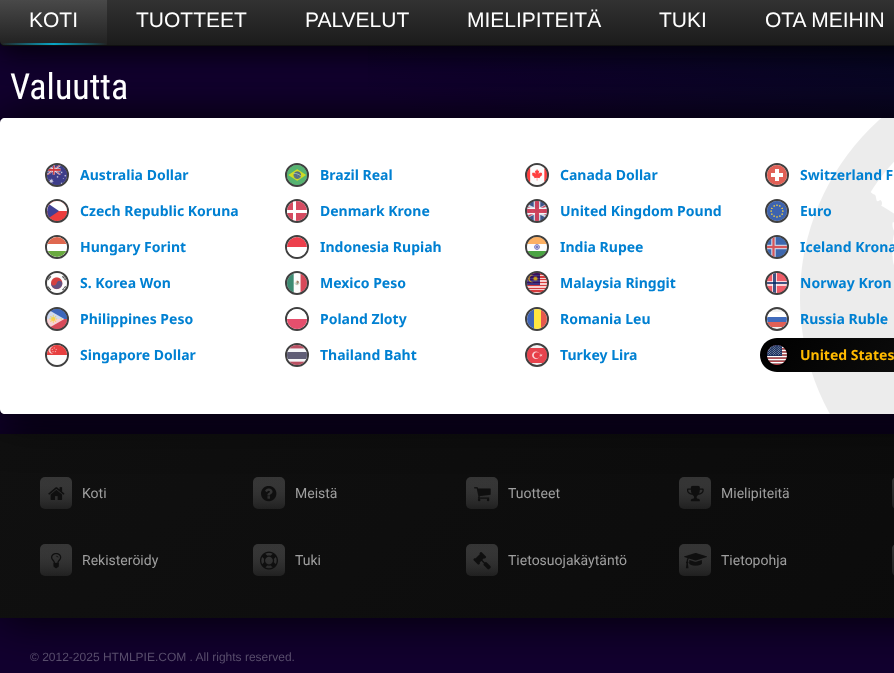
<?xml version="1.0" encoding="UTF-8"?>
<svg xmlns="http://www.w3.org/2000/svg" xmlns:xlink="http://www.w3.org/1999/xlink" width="894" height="673">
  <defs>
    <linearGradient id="g1" gradientUnits="userSpaceOnUse" x1="314" y1="486" x2="580" y2="-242"><stop offset="0" stop-color="#12002f" /><stop offset="0.5" stop-color="#12002f" /><stop offset="1" stop-color="#000d1b" /></linearGradient>
    <clipPath id="clip1"><rect y="-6" width="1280" height="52" rx="5" /></clipPath>
    <linearGradient id="g2" gradientUnits="userSpaceOnUse" x1="640" y1="-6" x2="640" y2="45"><stop offset="0" stop-color="#353535" /><stop offset="1" stop-color="#1b1b1b" /></linearGradient>
    <linearGradient id="g3" gradientUnits="userSpaceOnUse" x1="274" y1="160" x2="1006" y2="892"><stop offset="0" stop-color="#101010" /><stop offset="1" stop-color="#0a0a0a" /></linearGradient>
    <linearGradient id="g4" gradientUnits="userSpaceOnUse" x1="54" y1="-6" x2="54" y2="45"><stop offset="0" stop-color="#4e4e4e" /><stop offset="1" stop-color="#212121" /></linearGradient>
    <linearGradient id="g5" gradientUnits="userSpaceOnUse" x1="0.5" y1="44" x2="107" y2="44"><stop offset="0" stop-color="#00d2ff" stop-opacity="0" /><stop offset="0.5" stop-color="#00d2ff" stop-opacity="0.75" /><stop offset="1" stop-color="#00d2ff" stop-opacity="0" /></linearGradient>
    <clipPath id="clip2"><rect x="287" y="201" width="20" height="20" rx="10" /></clipPath>
    <clipPath id="clip3"><rect x="47" y="237" width="20" height="20" rx="10" /></clipPath>
    <clipPath id="clip4"><rect x="287" y="237" width="20" height="20" rx="10" /></clipPath>
    <clipPath id="clip5"><rect x="527" y="309" width="20" height="20" rx="10" /></clipPath>
    <clipPath id="clip6"><rect x="767" y="309" width="20" height="20" rx="10" /></clipPath>
    <linearGradient id="g6" gradientUnits="userSpaceOnUse" x1="806" y1="293" x2="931" y2="418"><stop offset="0" stop-color="#000000" /><stop offset="1" stop-color="#111111" /></linearGradient>
    <linearGradient id="g7" gradientUnits="userSpaceOnUse" x1="56" y1="509" x2="56" y2="477"><stop offset="0" stop-color="#323232" stop-opacity="0.5" /><stop offset="1" stop-color="#aaaaaa" stop-opacity="0.25" /></linearGradient>
    <linearGradient id="g8" gradientUnits="userSpaceOnUse" x1="269" y1="509" x2="269" y2="477"><stop offset="0" stop-color="#323232" stop-opacity="0.5" /><stop offset="1" stop-color="#aaaaaa" stop-opacity="0.25" /></linearGradient>
    <linearGradient id="g9" gradientUnits="userSpaceOnUse" x1="482" y1="509" x2="482" y2="477"><stop offset="0" stop-color="#323232" stop-opacity="0.5" /><stop offset="1" stop-color="#aaaaaa" stop-opacity="0.25" /></linearGradient>
    <linearGradient id="g10" gradientUnits="userSpaceOnUse" x1="695" y1="509" x2="695" y2="477"><stop offset="0" stop-color="#323232" stop-opacity="0.5" /><stop offset="1" stop-color="#aaaaaa" stop-opacity="0.25" /></linearGradient>
    <linearGradient id="g11" gradientUnits="userSpaceOnUse" x1="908" y1="509" x2="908" y2="477"><stop offset="0" stop-color="#1f1f1f" /><stop offset="1" stop-color="#333333" /></linearGradient>
    <linearGradient id="g12" gradientUnits="userSpaceOnUse" x1="56" y1="576" x2="56" y2="544"><stop offset="0" stop-color="#323232" stop-opacity="0.5" /><stop offset="1" stop-color="#aaaaaa" stop-opacity="0.25" /></linearGradient>
    <linearGradient id="g13" gradientUnits="userSpaceOnUse" x1="269" y1="576" x2="269" y2="544"><stop offset="0" stop-color="#323232" stop-opacity="0.5" /><stop offset="1" stop-color="#aaaaaa" stop-opacity="0.25" /></linearGradient>
    <linearGradient id="g14" gradientUnits="userSpaceOnUse" x1="482" y1="576" x2="482" y2="544"><stop offset="0" stop-color="#323232" stop-opacity="0.5" /><stop offset="1" stop-color="#aaaaaa" stop-opacity="0.25" /></linearGradient>
    <linearGradient id="g15" gradientUnits="userSpaceOnUse" x1="695" y1="576" x2="695" y2="544"><stop offset="0" stop-color="#323232" stop-opacity="0.5" /><stop offset="1" stop-color="#aaaaaa" stop-opacity="0.25" /></linearGradient>
    <linearGradient id="g16" gradientUnits="userSpaceOnUse" x1="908" y1="576" x2="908" y2="544"><stop offset="0" stop-color="#1f1f1f" /><stop offset="1" stop-color="#343434" /></linearGradient>
  </defs>
  <rect width="100%" height="100%" fill="#12002f" />
  <rect x="368" y="41" width="526" height="82" fill="url(#g1)" />
  <rect y="-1" width="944" height="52" rx="5" fill="#000000" fill-opacity="0.9" filter="blur(15px)" />
  <g clip-path="url(#clip1)">
    <path d="M 5 -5 h 889 v 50 h -894 v -45 c 0 -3 2 -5 5 -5 z" fill="url(#g2)" />
  </g>
  <path d="M 5 -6 h 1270 c 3 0 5 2 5 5 v 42 c 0 3 -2 5 -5 5 h -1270 c -3 0 -5 -2 -5 -5 v -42 c 0 -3 2 -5 5 -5 z m 0 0 h 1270 c 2 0 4 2 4 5 v 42 c 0 2 -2 4 -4 4 h -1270 c -3 0 -5 -2 -5 -4 v -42 c 0 -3 2 -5 5 -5 z" fill="#101010" fill-rule="evenodd" />
  <rect y="434" width="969" height="184" fill="#000000" fill-opacity="0.95" filter="blur(25px)" />
  <rect y="434" width="894" height="184" fill="url(#g3)" />
  <rect y="118" width="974" height="296" rx="5" fill="#000000" fill-opacity="0.95" filter="blur(25px)" />
  <path d="M 5 -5 h 102 v 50 h -102 c -3 0 -5 -2 -5 -5 v -40 c 0 -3 2 -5 5 -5 z" fill="url(#g4)" />
  <rect y="43" width="107" height="2" fill="url(#g5)" />
  <path d="M 5 118 h 889 v 296 h -889 c -3 0 -5 -2 -5 -5 v -286 c 0 -3 2 -5 5 -5 z" fill="#ffffff" />
  <image x="800" y="118" width="94" height="296" xlink:href="image1.png" />
  <circle cx="57" cy="175" r="11" fill="#f2f2f2" stroke="#404040" stroke-width="2" />
  <image x="47" y="165" width="20" height="20" xlink:href="image2.png" />
  <circle cx="297" cy="175" r="11" fill="#f2f2f2" stroke="#404040" stroke-width="2" />
  <image x="287" y="165" width="20" height="20" xlink:href="image3.png" />
  <circle cx="537" cy="175" r="11" fill="#f2f2f2" stroke="#404040" stroke-width="2" />
  <image x="527" y="165" width="20" height="20" xlink:href="image4.png" />
  <circle cx="777" cy="175" r="11" fill="none" stroke="#404040" stroke-width="2" />
  <circle cx="777" cy="175" r="10" fill="#e06056" />
  <rect x="771" y="173" width="12" height="4" fill="#ffffff" />
  <rect x="775" y="169" width="4" height="12" fill="#ffffff" />
  <circle cx="57" cy="211" r="11" fill="#f2f2f2" stroke="#404040" stroke-width="2" />
  <path d="M 57 201 c 10.5 0 14 15 4 19 c -1.5 0.5 -3 1 -4.5 1 c -13 -1.5 -12 -20 0.5 -20 z" fill="#e80000" fill-opacity="0.75" />
  <path d="M 57 201 c 5.5 0 10 4.5 10 10 h -20 c 0 -5.5 4.5 -10 10 -10 z" fill="#ffffff" />
  <path d="M 49.5 204.5 c -3 3.5 -3 9.5 0 13 l 9.5 -6.5 z" fill="#404093" />
  <circle cx="297" cy="211" r="11" fill="none" stroke="#404040" stroke-width="2" />
  <circle cx="297" cy="211" r="10" fill="#d64c62" />
  <g clip-path="url(#clip2)">
    <rect x="293" y="201" width="3" height="20" fill="#ffffff" />
  </g>
  <rect x="287" y="210" width="20" height="3" fill="#ffffff" />
  <circle cx="537" cy="211" r="11" fill="#f2f2f2" stroke="#404040" stroke-width="2" />
  <image x="527" y="201" width="20" height="20" xlink:href="image5.png" />
  <circle cx="777" cy="211" r="11" fill="#f2f2f2" stroke="#404040" stroke-width="2" />
  <image x="767" y="201" width="20" height="20" xlink:href="image6.png" />
  <circle cx="57" cy="247" r="11" fill="none" stroke="#404040" stroke-width="2" />
  <circle cx="57" cy="247" r="10" fill="#ffffff" />
  <g clip-path="url(#clip3)">
    <rect x="47" y="251" width="20" height="6" fill="#6aaa40" />
    <rect x="47" y="237" width="20" height="7" fill="#df6850" />
  </g>
  <circle cx="297" cy="247" r="11" fill="#f2f2f2" stroke="#404040" stroke-width="2" />
  <g clip-path="url(#clip4)">
    <path d="M 297 237 c 5.5 0 10 4.5 10 10 v 1 h -20 v -1 c 0 -5.5 4.5 -10 10 -10 z" fill="#ed404d" />
  </g>
  <path d="M 287 247 h 20 c 0 5.5 -4.5 10 -10 10 c -5.5 0 -10 -4.5 -10 -10 z" fill="#ffffff" />
  <circle cx="537" cy="247" r="11" fill="#f2f2f2" stroke="#404040" stroke-width="2" />
  <image x="527" y="237" width="20" height="20" xlink:href="image7.png" />
  <circle cx="777" cy="247" r="11" fill="#f2f2f2" stroke="#404040" stroke-width="2" />
  <image x="767" y="237" width="20" height="20" xlink:href="image8.png" />
  <circle cx="57" cy="283" r="11" fill="#f2f2f2" stroke="#404040" stroke-width="2" />
  <image x="47" y="273" width="20" height="20" xlink:href="image9.png" />
  <circle cx="297" cy="283" r="11" fill="#f2f2f2" stroke="#404040" stroke-width="2" />
  <image x="287" y="273" width="20" height="20" xlink:href="image10.png" />
  <circle cx="537" cy="283" r="11" fill="#f2f2f2" stroke="#404040" stroke-width="2" />
  <image x="527" y="273" width="20" height="20" xlink:href="image11.png" />
  <circle cx="777" cy="283" r="11" fill="#f2f2f2" stroke="#404040" stroke-width="2" />
  <image x="767" y="273" width="20" height="20" xlink:href="image12.png" />
  <circle cx="57" cy="319" r="11" fill="#f2f2f2" stroke="#404040" stroke-width="2" />
  <image x="47" y="309" width="20" height="20" xlink:href="image13.png" />
  <circle cx="297" cy="319" r="11" fill="none" stroke="#404040" stroke-width="2" />
  <circle cx="297" cy="319" r="10" fill="#ffffff" />
  <path d="M 287 319 h 20 c 0 5.5 -4.5 10 -10 10 c -5.5 0 -10 -4.5 -10 -10 z" fill="#e54f6d" />
  <circle cx="537" cy="319" r="11" fill="none" stroke="#404040" stroke-width="2" />
  <g clip-path="url(#clip5)">
    <rect x="527" y="309" width="7" height="20" fill="#4065b5" />
    <rect x="534" y="309" width="7" height="20" fill="#ffe640" />
    <rect x="541" y="309" width="6" height="20" fill="#e6594c" />
  </g>
  <circle cx="777" cy="319" r="11" fill="#f2f2f2" stroke="#404040" stroke-width="2" />
  <g clip-path="url(#clip6)">
    <rect x="767" y="312" width="20" height="15" fill="#ffffff" />
    <rect x="767" y="317" width="20" height="10" fill="#406bbc" />
    <rect x="767" y="322" width="20" height="5" fill="#e06056" />
  </g>
  <circle cx="57" cy="355" r="11" fill="#f2f2f2" stroke="#404040" stroke-width="2" />
  <image x="47" y="345" width="20" height="20" xlink:href="image14.png" />
  <circle cx="297" cy="355" r="11" fill="#f2f2f2" stroke="#404040" stroke-width="2" />
  <image x="287" y="345" width="20" height="20" xlink:href="image15.png" />
  <circle cx="537" cy="355" r="11" fill="#f2f2f2" stroke="#404040" stroke-width="2" />
  <image x="527" y="348" width="20" height="15" xlink:href="image16.png" />
  <path d="M 777 338 h 117 v 34 h -117 c -9.5 0 -17 -7.5 -17 -17 c 0 -9.5 7.5 -17 17 -17 z" fill="url(#g6)" />
  <circle cx="777" cy="355" r="11" fill="none" stroke="#000000" stroke-width="2" />
  <image x="767" y="345" width="20" height="20" xlink:href="image17.png" />
  <rect x="40" y="477" width="32" height="32" rx="5" fill="url(#g7)" />
  <image x="48" y="487" width="17" height="13" xlink:href="image18.png" />
  <rect x="253" y="477" width="32" height="32" rx="5" fill="url(#g8)" />
  <image x="261" y="486" width="16" height="16" xlink:href="image19.png" />
  <rect x="466" y="477" width="32" height="32" rx="5" fill="url(#g9)" />
  <image x="474" y="487" width="17" height="15" xlink:href="image20.png" />
  <rect x="679" y="477" width="32" height="32" rx="5" fill="url(#g10)" />
  <image x="687" y="485" width="17" height="17" xlink:href="image21.png" />
  <path d="M 897 477 h -3 v 32 h 3 c -3 0 -5 -2 -5 -5 v -22 c 0 -3 2 -5 5 -5 z" fill="url(#g11)" />
  <rect x="40" y="544" width="32" height="32" rx="5" fill="url(#g12)" />
  <image x="51" y="553" width="11" height="16" xlink:href="image22.png" />
  <rect x="253" y="544" width="32" height="32" rx="5" fill="url(#g13)" />
  <image x="260" y="551" width="18" height="19" xlink:href="image23.png" />
  <rect x="466" y="544" width="32" height="32" rx="5" fill="url(#g14)" />
  <image x="473" y="552" width="18" height="18" xlink:href="image24.png" />
  <rect x="679" y="544" width="32" height="32" rx="5" fill="url(#g15)" />
  <image x="684" y="553" width="23" height="16" xlink:href="image25.png" />
  <path d="M 897 544 h -3 v 32 h 3 c -3 0 -5 -2 -5 -5 v -22 c 0 -3 2 -5 5 -5 z" fill="url(#g16)" />
  <text x="29" y="27" style="font-family: Liberation Sans; font-size: 21px; fill: #ffffff">KOTI</text>
  <text x="136" y="27" style="font-family: Liberation Sans; font-size: 21px; fill: #ffffff">TUOTTEET</text>
  <text x="305" y="27" style="font-family: Liberation Sans; font-size: 21px; fill: #ffffff">PALVELUT</text>
  <text x="467" y="27" style="font-family: Liberation Sans; font-size: 21px; fill: #ffffff">MIELIPITEITÄ</text>
  <text x="659" y="27" style="font-family: Liberation Sans; font-size: 21px; fill: #ffffff">TUKI</text>
  <text x="765" y="27" style="font-family: Liberation Sans; font-size: 21px; fill: #ffffff">OTA MEIHIN</text>
  <text x="10" y="99" style="font-family: Roboto Condensed; font-size: 36px; fill: #ffffff">Valuutta</text>
  <text x="80" y="180" style="font-family: Noto Sans; font-size: 14px; font-weight: bold; fill: #0080d2">Australia Dollar</text>
  <text x="320" y="180" style="font-family: Noto Sans; font-size: 14px; font-weight: bold; fill: #0080d2">Brazil Real</text>
  <text x="560" y="180" style="font-family: Noto Sans; font-size: 14px; font-weight: bold; fill: #0080d2">Canada Dollar</text>
  <text x="800" y="180" style="font-family: Noto Sans; font-size: 14px; font-weight: bold; fill: #0080d2">Switzerland F</text>
  <text x="80" y="216" style="font-family: Noto Sans; font-size: 14px; font-weight: bold; fill: #0080d2">Czech Republic Koruna</text>
  <text x="320" y="216" style="font-family: Noto Sans; font-size: 14px; font-weight: bold; fill: #0080d2">Denmark Krone</text>
  <text x="560" y="216" style="font-family: Noto Sans; font-size: 14px; font-weight: bold; fill: #0080d2">United Kingdom Pound</text>
  <text x="800" y="216" style="font-family: Noto Sans; font-size: 14px; font-weight: bold; fill: #0080d2">Euro</text>
  <text x="80" y="252" style="font-family: Noto Sans; font-size: 14px; font-weight: bold; fill: #0080d2">Hungary Forint</text>
  <text x="320" y="252" style="font-family: Noto Sans; font-size: 14px; font-weight: bold; fill: #0080d2">Indonesia Rupiah</text>
  <text x="560" y="252" style="font-family: Noto Sans; font-size: 14px; font-weight: bold; fill: #0080d2">India Rupee</text>
  <text x="800" y="252" style="font-family: Noto Sans; font-size: 14px; font-weight: bold; fill: #0080d2">Iceland Krona</text>
  <text x="80" y="288" style="font-family: Noto Sans; font-size: 14px; font-weight: bold; fill: #0080d2">S. Korea Won</text>
  <text x="320" y="288" style="font-family: Noto Sans; font-size: 14px; font-weight: bold; fill: #0080d2">Mexico Peso</text>
  <text x="560" y="288" style="font-family: Noto Sans; font-size: 14px; font-weight: bold; fill: #0080d2">Malaysia Ringgit</text>
  <text x="800" y="288" style="font-family: Noto Sans; font-size: 14px; font-weight: bold; fill: #0080d2">Norway Kron</text>
  <text x="80" y="324" style="font-family: Noto Sans; font-size: 14px; font-weight: bold; fill: #0080d2">Philippines Peso</text>
  <text x="320" y="324" style="font-family: Noto Sans; font-size: 14px; font-weight: bold; fill: #0080d2">Poland Zloty</text>
  <text x="560" y="324" style="font-family: Noto Sans; font-size: 14px; font-weight: bold; fill: #0080d2">Romania Leu</text>
  <text x="800" y="324" style="font-family: Noto Sans; font-size: 14px; font-weight: bold; fill: #0080d2">Russia Ruble</text>
  <text x="80" y="360" style="font-family: Noto Sans; font-size: 14px; font-weight: bold; fill: #0080d2">Singapore Dollar</text>
  <text x="320" y="360" style="font-family: Noto Sans; font-size: 14px; font-weight: bold; fill: #0080d2">Thailand Baht</text>
  <text x="560" y="360" style="font-family: Noto Sans; font-size: 14px; font-weight: bold; fill: #0080d2">Turkey Lira</text>
  <text x="800" y="360" style="font-family: Noto Sans; font-size: 14px; font-weight: bold; fill: #ffba00">United States</text>
  <text x="82" y="498" style="font-family: Roboto; font-size: 14px; fill: #9f9f9f">Koti</text>
  <text x="295" y="498" style="font-family: Roboto; font-size: 14px; fill: #9f9f9f">Meistä</text>
  <text x="508" y="498" style="font-family: Roboto; font-size: 14px; fill: #9f9f9f">Tuotteet</text>
  <text x="721" y="498" style="font-family: Roboto; font-size: 14px; fill: #9f9f9f">Mielipiteitä</text>
  <text x="82" y="565" style="font-family: Roboto; font-size: 14px; fill: #9f9f9f">Rekisteröidy</text>
  <text x="295" y="565" style="font-family: Roboto; font-size: 14px; fill: #9f9f9f">Tuki</text>
  <text x="508" y="565" style="font-family: Roboto; font-size: 14px; fill: #9f9f9f">Tietosuojakäytäntö</text>
  <text x="721" y="565" style="font-family: Roboto; font-size: 14px; fill: #9f9f9f">Tietopohja</text>
  <text x="30" y="661" style="font-family: Liberation Sans; font-size: 12px; fill: #584d6c">© 2012-2025 HTMLPIE.COM . All rights reserved.</text>
</svg>
